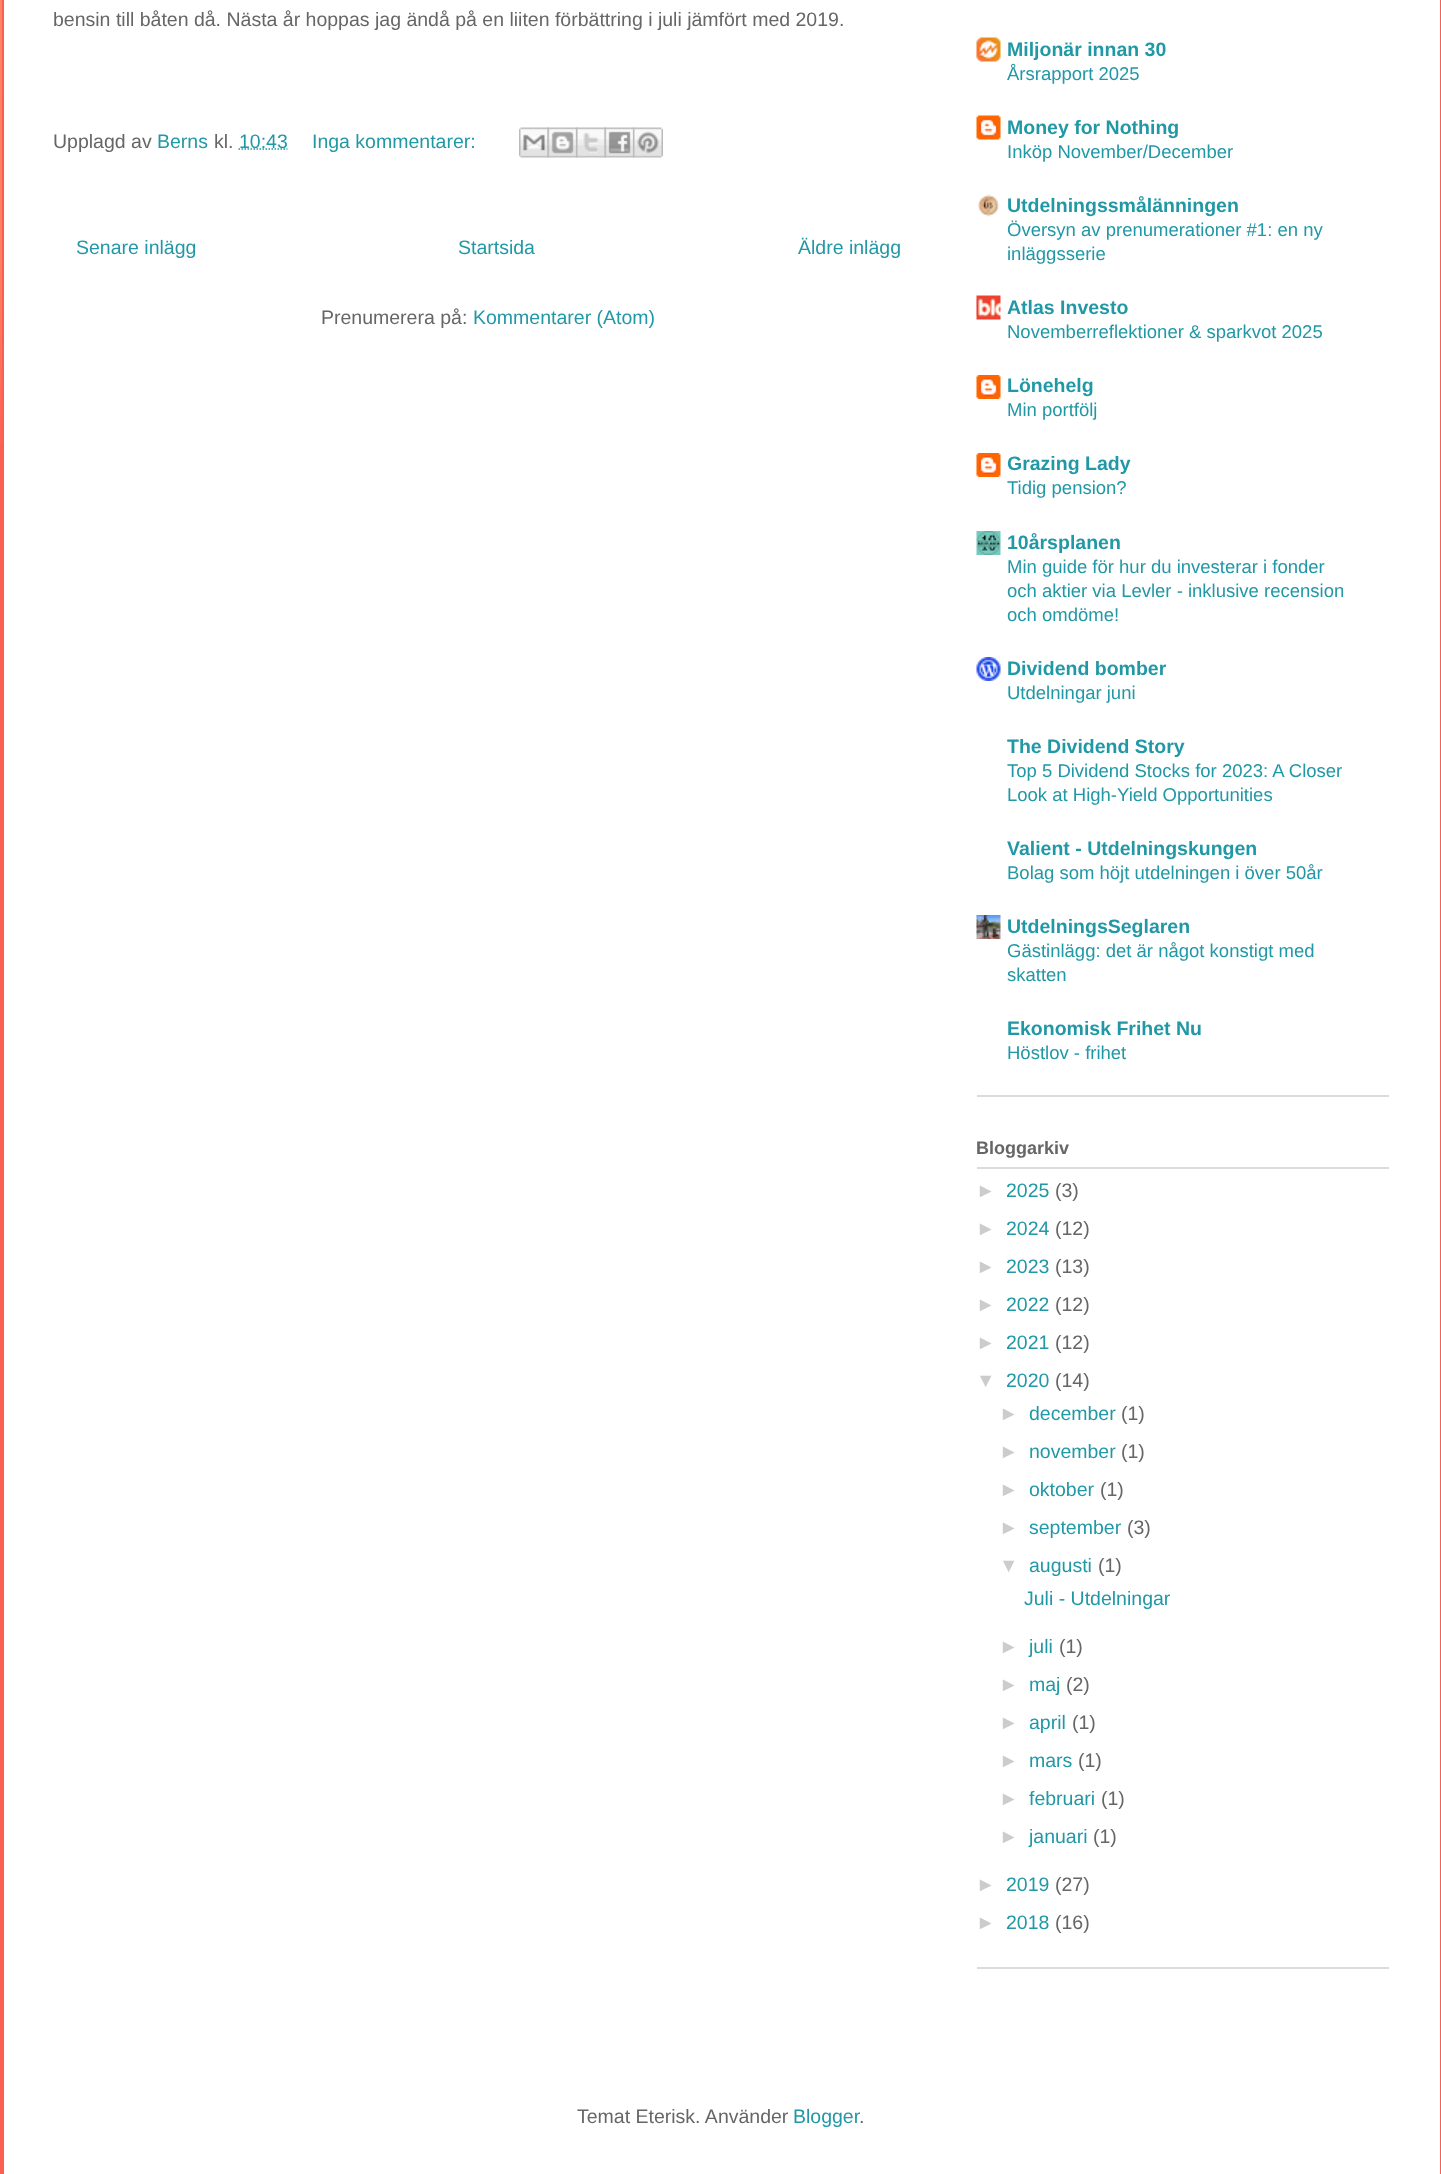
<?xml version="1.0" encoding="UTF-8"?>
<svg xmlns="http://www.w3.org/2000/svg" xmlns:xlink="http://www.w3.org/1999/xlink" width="1441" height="2174">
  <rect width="100%" height="100%" fill="#fb5e53" />
  <image x="0" y="0" width="2" height="443" xlink:href="image1.png" />
  <rect x="4" width="1436" height="2174" fill="#ffffff" />
  <path d="M 238.5 149 h 49" fill="none" stroke="#2198a6" stroke-width="1.5" stroke-dasharray="1.5 1.5" />
  <image x="519" y="127" width="30" height="31" xlink:href="image2.png" />
  <image x="547" y="127" width="31" height="31" xlink:href="image3.png" />
  <image x="576" y="127" width="30" height="31" xlink:href="image4.png" />
  <image x="604" y="127" width="31" height="31" xlink:href="image5.png" />
  <image x="633" y="127" width="30" height="31" xlink:href="image6.png" />
  <rect x="977" y="1095" width="412" height="2" fill="#dbdbdb" />
  <image x="976" y="37" width="25" height="25" xlink:href="image7.png" />
  <image x="976" y="115" width="25" height="25" xlink:href="image8.png" />
  <image x="977" y="194" width="23" height="23" xlink:href="image9.png" />
  <image x="976" y="295" width="25" height="25" xlink:href="image10.png" />
  <image x="976" y="375" width="25" height="24" xlink:href="image11.png" />
  <image x="976" y="453" width="25" height="24" xlink:href="image11.png" />
  <image x="976" y="531" width="25" height="24" xlink:href="image12.png" />
  <image x="976" y="657" width="25" height="24" xlink:href="image13.png" />
  <image x="976" y="915" width="25" height="24" xlink:href="image14.png" />
  <rect x="977" y="1967" width="412" height="2" fill="#dbdbdb" />
  <rect x="977" y="1167" width="412" height="2" fill="#dbdbdb" />
  <text x="53" y="26" style="font-family: Liberation Sans; font-size: 19.5px; fill: #666666">bensin till båten då. Nästa år hoppas jag ändå på en liiten förbättring i juli jämfört med 2019.</text>
  <text x="53" y="148" style="font-family: Liberation Sans; font-size: 19.5px; fill: #666666">Upplagd av</text>
  <text x="157" y="148" style="font-family: Liberation Sans; font-size: 19.5px; fill: #2198a6">Berns</text>
  <text x="214" y="148" style="font-family: Liberation Sans; font-size: 19.5px; fill: #666666">kl.</text>
  <text x="239" y="148" style="font-family: Liberation Sans; font-size: 19.5px; fill: #2198a6">10:43</text>
  <text x="312" y="148" style="font-family: Liberation Sans; font-size: 19.5px; fill: #2198a6">Inga kommentarer:</text>
  <text x="76" y="254" style="font-family: Liberation Sans; font-size: 19.5px; fill: #2198a6">Senare inlägg</text>
  <text x="458" y="254" style="font-family: Liberation Sans; font-size: 19.5px; fill: #2198a6">Startsida</text>
  <text x="798" y="254" style="font-family: Liberation Sans; font-size: 19.5px; fill: #2198a6">Äldre inlägg</text>
  <text x="321" y="324" style="font-family: Liberation Sans; font-size: 19.5px; fill: #666666">Prenumerera på:</text>
  <text x="473" y="324" style="font-family: Liberation Sans; font-size: 19.5px; fill: #2198a6">Kommentarer (Atom)</text>
  <text x="1007" y="56" style="font-family: Liberation Sans; font-size: 19.5px; font-weight: bold; fill: #2198a6">Miljonär innan 30</text>
  <text x="1007" y="80" style="font-family: Liberation Sans; font-size: 18.5px; fill: #2198a6">Årsrapport 2025</text>
  <text x="1007" y="134" style="font-family: Liberation Sans; font-size: 19.5px; font-weight: bold; fill: #2198a6">Money for Nothing</text>
  <text x="1007" y="158" style="font-family: Liberation Sans; font-size: 18.5px; fill: #2198a6">Inköp November/December</text>
  <text x="1007" y="212" style="font-family: Liberation Sans; font-size: 19.5px; font-weight: bold; fill: #2198a6">Utdelningssmålänningen</text>
  <text x="1007" y="236" style="font-family: Liberation Sans; font-size: 18.5px; fill: #2198a6">Översyn av prenumerationer #1: en ny</text>
  <text x="1007" y="260" style="font-family: Liberation Sans; font-size: 18.5px; fill: #2198a6">inläggsserie</text>
  <text x="1007" y="314" style="font-family: Liberation Sans; font-size: 19.5px; font-weight: bold; fill: #2198a6">Atlas Investo</text>
  <text x="1007" y="338" style="font-family: Liberation Sans; font-size: 18.5px; fill: #2198a6">Novemberreflektioner &amp; sparkvot 2025</text>
  <text x="1007" y="392" style="font-family: Liberation Sans; font-size: 19.5px; font-weight: bold; fill: #2198a6">Lönehelg</text>
  <text x="1007" y="416" style="font-family: Liberation Sans; font-size: 18.5px; fill: #2198a6">Min portfölj</text>
  <text x="1007" y="470" style="font-family: Liberation Sans; font-size: 19.5px; font-weight: bold; fill: #2198a6">Grazing Lady</text>
  <text x="1007" y="494" style="font-family: Liberation Sans; font-size: 18.5px; fill: #2198a6">Tidig pension?</text>
  <text x="1007" y="549" style="font-family: Liberation Sans; font-size: 19.5px; font-weight: bold; fill: #2198a6">10årsplanen</text>
  <text x="1007" y="573" style="font-family: Liberation Sans; font-size: 18.5px; fill: #2198a6">Min guide för hur du investerar i fonder</text>
  <text x="1007" y="597" style="font-family: Liberation Sans; font-size: 18.5px; fill: #2198a6">och aktier via Levler - inklusive recension</text>
  <text x="1007" y="621" style="font-family: Liberation Sans; font-size: 18.5px; fill: #2198a6">och omdöme!</text>
  <text x="1007" y="675" style="font-family: Liberation Sans; font-size: 19.5px; font-weight: bold; fill: #2198a6">Dividend bomber</text>
  <text x="1007" y="699" style="font-family: Liberation Sans; font-size: 18.5px; fill: #2198a6">Utdelningar juni</text>
  <text x="1007" y="753" style="font-family: Liberation Sans; font-size: 19.5px; font-weight: bold; fill: #2198a6">The Dividend Story</text>
  <text x="1007" y="777" style="font-family: Liberation Sans; font-size: 18.5px; fill: #2198a6">Top 5 Dividend Stocks for 2023: A Closer</text>
  <text x="1007" y="801" style="font-family: Liberation Sans; font-size: 18.5px; fill: #2198a6">Look at High-Yield Opportunities</text>
  <text x="1007" y="855" style="font-family: Liberation Sans; font-size: 19.5px; font-weight: bold; fill: #2198a6">Valient - Utdelningskungen</text>
  <text x="1007" y="879" style="font-family: Liberation Sans; font-size: 18.5px; fill: #2198a6">Bolag som höjt utdelningen i över 50år</text>
  <text x="1007" y="933" style="font-family: Liberation Sans; font-size: 19.5px; font-weight: bold; fill: #2198a6">UtdelningsSeglaren</text>
  <text x="1007" y="957" style="font-family: Liberation Sans; font-size: 18.5px; fill: #2198a6">Gästinlägg: det är något konstigt med</text>
  <text x="1007" y="981" style="font-family: Liberation Sans; font-size: 18.5px; fill: #2198a6">skatten</text>
  <text x="1007" y="1035" style="font-family: Liberation Sans; font-size: 19.5px; font-weight: bold; fill: #2198a6">Ekonomisk Frihet Nu</text>
  <text x="1007" y="1059" style="font-family: Liberation Sans; font-size: 18.5px; fill: #2198a6">Höstlov - frihet</text>
  <text x="976" y="1154" style="font-family: Liberation Sans; font-size: 18px; font-weight: bold; fill: #666666">Bloggarkiv</text>
  <text x="976" y="1197" style="font-family: Liberation Sans; font-size: 19.5px; fill: #cccccc">►</text>
  <text x="1006" y="1197" style="font-family: Liberation Sans; font-size: 19.5px; fill: #2198a6">2025</text>
  <text x="1055" y="1197" style="font-family: Liberation Sans; font-size: 19.5px; fill: #666666">(3)</text>
  <text x="976" y="1235" style="font-family: Liberation Sans; font-size: 19.5px; fill: #cccccc">►</text>
  <text x="1006" y="1235" style="font-family: Liberation Sans; font-size: 19.5px; fill: #2198a6">2024</text>
  <text x="1055" y="1235" style="font-family: Liberation Sans; font-size: 19.5px; fill: #666666">(12)</text>
  <text x="976" y="1273" style="font-family: Liberation Sans; font-size: 19.5px; fill: #cccccc">►</text>
  <text x="1006" y="1273" style="font-family: Liberation Sans; font-size: 19.5px; fill: #2198a6">2023</text>
  <text x="1055" y="1273" style="font-family: Liberation Sans; font-size: 19.5px; fill: #666666">(13)</text>
  <text x="976" y="1311" style="font-family: Liberation Sans; font-size: 19.5px; fill: #cccccc">►</text>
  <text x="1006" y="1311" style="font-family: Liberation Sans; font-size: 19.5px; fill: #2198a6">2022</text>
  <text x="1055" y="1311" style="font-family: Liberation Sans; font-size: 19.5px; fill: #666666">(12)</text>
  <text x="976" y="1349" style="font-family: Liberation Sans; font-size: 19.5px; fill: #cccccc">►</text>
  <text x="1006" y="1349" style="font-family: Liberation Sans; font-size: 19.5px; fill: #2198a6">2021</text>
  <text x="1055" y="1349" style="font-family: Liberation Sans; font-size: 19.5px; fill: #666666">(12)</text>
  <text x="976" y="1387" style="font-family: Liberation Sans; font-size: 19.5px; fill: #cccccc">▼</text>
  <text x="1006" y="1387" style="font-family: Liberation Sans; font-size: 19.5px; fill: #2198a6">2020</text>
  <text x="1055" y="1387" style="font-family: Liberation Sans; font-size: 19.5px; fill: #666666">(14)</text>
  <text x="999" y="1420" style="font-family: Liberation Sans; font-size: 19.5px; fill: #cccccc">►</text>
  <text x="1029" y="1420" style="font-family: Liberation Sans; font-size: 19.5px; fill: #2198a6">december</text>
  <text x="1121" y="1420" style="font-family: Liberation Sans; font-size: 19.5px; fill: #666666">(1)</text>
  <text x="999" y="1458" style="font-family: Liberation Sans; font-size: 19.5px; fill: #cccccc">►</text>
  <text x="1029" y="1458" style="font-family: Liberation Sans; font-size: 19.5px; fill: #2198a6">november</text>
  <text x="1121" y="1458" style="font-family: Liberation Sans; font-size: 19.5px; fill: #666666">(1)</text>
  <text x="999" y="1496" style="font-family: Liberation Sans; font-size: 19.5px; fill: #cccccc">►</text>
  <text x="1029" y="1496" style="font-family: Liberation Sans; font-size: 19.5px; fill: #2198a6">oktober</text>
  <text x="1100" y="1496" style="font-family: Liberation Sans; font-size: 19.5px; fill: #666666">(1)</text>
  <text x="999" y="1534" style="font-family: Liberation Sans; font-size: 19.5px; fill: #cccccc">►</text>
  <text x="1029" y="1534" style="font-family: Liberation Sans; font-size: 19.5px; fill: #2198a6">september</text>
  <text x="1127" y="1534" style="font-family: Liberation Sans; font-size: 19.5px; fill: #666666">(3)</text>
  <text x="999" y="1572" style="font-family: Liberation Sans; font-size: 19.5px; fill: #cccccc">▼</text>
  <text x="1029" y="1572" style="font-family: Liberation Sans; font-size: 19.5px; fill: #2198a6">augusti</text>
  <text x="1098" y="1572" style="font-family: Liberation Sans; font-size: 19.5px; fill: #666666">(1)</text>
  <text x="1024" y="1605" style="font-family: Liberation Sans; font-size: 19.5px; fill: #2198a6">Juli - Utdelningar</text>
  <text x="999" y="1653" style="font-family: Liberation Sans; font-size: 19.5px; fill: #cccccc">►</text>
  <text x="1029" y="1653" style="font-family: Liberation Sans; font-size: 19.5px; fill: #2198a6">juli</text>
  <text x="1059" y="1653" style="font-family: Liberation Sans; font-size: 19.5px; fill: #666666">(1)</text>
  <text x="999" y="1691" style="font-family: Liberation Sans; font-size: 19.5px; fill: #cccccc">►</text>
  <text x="1029" y="1691" style="font-family: Liberation Sans; font-size: 19.5px; fill: #2198a6">maj</text>
  <text x="1066" y="1691" style="font-family: Liberation Sans; font-size: 19.5px; fill: #666666">(2)</text>
  <text x="999" y="1729" style="font-family: Liberation Sans; font-size: 19.5px; fill: #cccccc">►</text>
  <text x="1029" y="1729" style="font-family: Liberation Sans; font-size: 19.5px; fill: #2198a6">april</text>
  <text x="1072" y="1729" style="font-family: Liberation Sans; font-size: 19.5px; fill: #666666">(1)</text>
  <text x="999" y="1767" style="font-family: Liberation Sans; font-size: 19.5px; fill: #cccccc">►</text>
  <text x="1029" y="1767" style="font-family: Liberation Sans; font-size: 19.5px; fill: #2198a6">mars</text>
  <text x="1078" y="1767" style="font-family: Liberation Sans; font-size: 19.5px; fill: #666666">(1)</text>
  <text x="999" y="1805" style="font-family: Liberation Sans; font-size: 19.5px; fill: #cccccc">►</text>
  <text x="1029" y="1805" style="font-family: Liberation Sans; font-size: 19.5px; fill: #2198a6">februari</text>
  <text x="1101" y="1805" style="font-family: Liberation Sans; font-size: 19.5px; fill: #666666">(1)</text>
  <text x="999" y="1843" style="font-family: Liberation Sans; font-size: 19.5px; fill: #cccccc">►</text>
  <text x="1029" y="1843" style="font-family: Liberation Sans; font-size: 19.5px; fill: #2198a6">januari</text>
  <text x="1093" y="1843" style="font-family: Liberation Sans; font-size: 19.5px; fill: #666666">(1)</text>
  <text x="976" y="1891" style="font-family: Liberation Sans; font-size: 19.5px; fill: #cccccc">►</text>
  <text x="1006" y="1891" style="font-family: Liberation Sans; font-size: 19.5px; fill: #2198a6">2019</text>
  <text x="1055" y="1891" style="font-family: Liberation Sans; font-size: 19.5px; fill: #666666">(27)</text>
  <text x="976" y="1929" style="font-family: Liberation Sans; font-size: 19.5px; fill: #cccccc">►</text>
  <text x="1006" y="1929" style="font-family: Liberation Sans; font-size: 19.5px; fill: #2198a6">2018</text>
  <text x="1055" y="1929" style="font-family: Liberation Sans; font-size: 19.5px; fill: #666666">(16)</text>
  <text x="577" y="2123" style="font-family: Liberation Sans; font-size: 19.5px; fill: #666666">Temat Eterisk. Använder</text>
  <text x="793" y="2123" style="font-family: Liberation Sans; font-size: 19.5px; fill: #2198a6">Blogger</text>
  <text x="859" y="2123" style="font-family: Liberation Sans; font-size: 19.5px; fill: #666666">.</text>
</svg>
